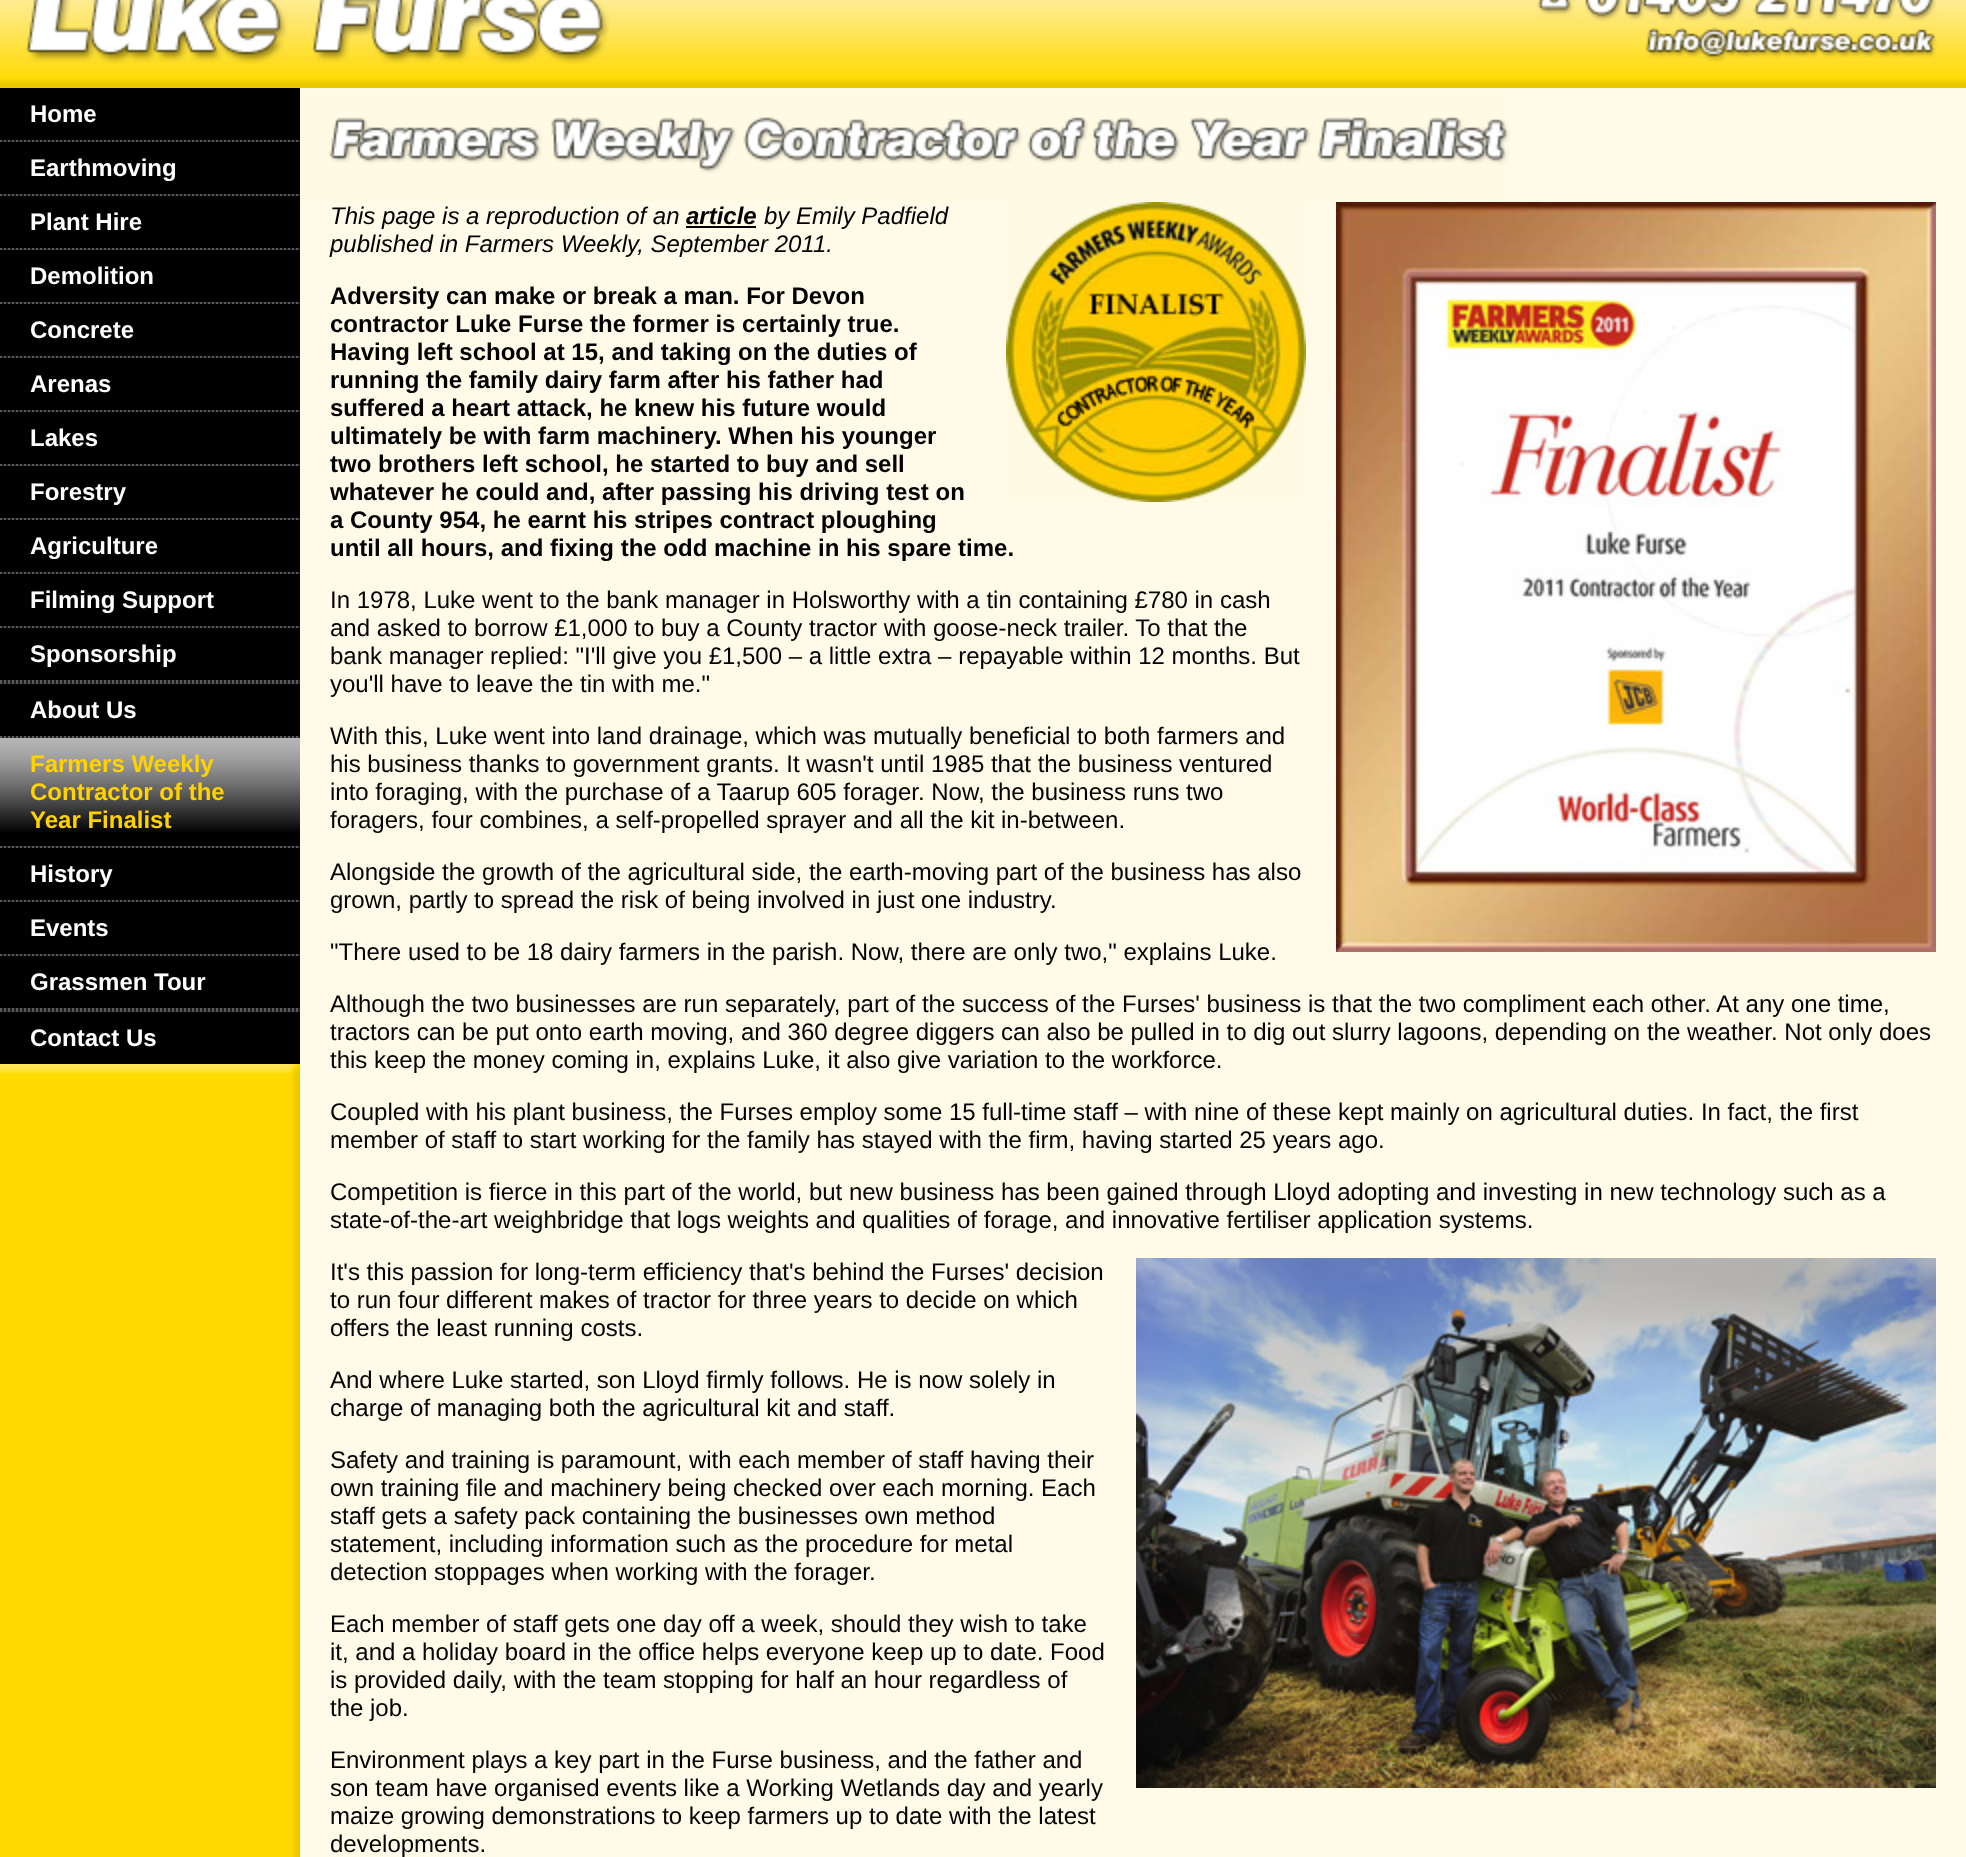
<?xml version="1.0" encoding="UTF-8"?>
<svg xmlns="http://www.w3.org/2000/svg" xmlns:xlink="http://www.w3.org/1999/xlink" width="1966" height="1857">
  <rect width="100%" height="100%" fill="#fffbe8" />
  <image x="0" y="0" width="1966" height="88" xlink:href="image1.png" />
  <image x="25" y="0" width="584" height="64" xlink:href="image2.png" />
  <image x="1537" y="0" width="400" height="21" xlink:href="image3.png" />
  <image x="1645" y="27" width="292" height="35" xlink:href="image4.png" />
  <image x="0" y="1074" width="300" height="783" xlink:href="image5.png" />
  <rect y="88" width="300" height="976" fill="#000000" />
  <image x="0" y="140" width="300" height="2" xlink:href="image6.png" />
  <image x="0" y="194" width="300" height="2" xlink:href="image6.png" />
  <image x="0" y="248" width="300" height="2" xlink:href="image6.png" />
  <image x="0" y="302" width="300" height="2" xlink:href="image6.png" />
  <image x="0" y="356" width="300" height="2" xlink:href="image6.png" />
  <image x="0" y="410" width="300" height="2" xlink:href="image6.png" />
  <image x="0" y="464" width="300" height="2" xlink:href="image6.png" />
  <image x="0" y="518" width="300" height="2" xlink:href="image6.png" />
  <image x="0" y="572" width="300" height="2" xlink:href="image6.png" />
  <image x="0" y="626" width="300" height="2" xlink:href="image6.png" />
  <image x="0" y="680" width="300" height="2" xlink:href="image6.png" />
  <image x="0" y="682" width="300" height="2" xlink:href="image6.png" />
  <image x="0" y="736" width="300" height="2" xlink:href="image6.png" />
  <image x="0" y="738" width="300" height="94" xlink:href="image7.png" />
  <image x="0" y="846" width="300" height="2" xlink:href="image6.png" />
  <image x="0" y="900" width="300" height="2" xlink:href="image6.png" />
  <image x="0" y="954" width="300" height="2" xlink:href="image6.png" />
  <image x="0" y="1008" width="300" height="2" xlink:href="image6.png" />
  <image x="0" y="1010" width="300" height="2" xlink:href="image6.png" />
  <image x="0" y="1064" width="290" height="10" xlink:href="image8.png" />
  <image x="290" y="1064" width="10" height="10" xlink:href="image9.png" />
  <image x="300" y="90" width="1210" height="112" xlink:href="image10.png" />
  <rect x="686" y="226" width="70" height="2" fill="#000000" />
  <image x="1006" y="202" width="300" height="300" xlink:href="image11.png" />
  <image x="1336" y="202" width="600" height="750" xlink:href="image12.png" />
  <image x="1136" y="1258" width="800" height="530" xlink:href="image13.png" />
  <text x="30" y="122" style="font-family: Liberation Sans; font-size: 24px; font-weight: bold; fill: #ffffff">Home</text>
  <text x="30" y="176" style="font-family: Liberation Sans; font-size: 24px; font-weight: bold; fill: #ffffff">Earthmoving</text>
  <text x="30" y="230" style="font-family: Liberation Sans; font-size: 24px; font-weight: bold; fill: #ffffff">Plant Hire</text>
  <text x="30" y="284" style="font-family: Liberation Sans; font-size: 24px; font-weight: bold; fill: #ffffff">Demolition</text>
  <text x="30" y="338" style="font-family: Liberation Sans; font-size: 24px; font-weight: bold; fill: #ffffff">Concrete</text>
  <text x="30" y="392" style="font-family: Liberation Sans; font-size: 24px; font-weight: bold; fill: #ffffff">Arenas</text>
  <text x="30" y="446" style="font-family: Liberation Sans; font-size: 24px; font-weight: bold; fill: #ffffff">Lakes</text>
  <text x="30" y="500" style="font-family: Liberation Sans; font-size: 24px; font-weight: bold; fill: #ffffff">Forestry</text>
  <text x="30" y="554" style="font-family: Liberation Sans; font-size: 24px; font-weight: bold; fill: #ffffff">Agriculture</text>
  <text x="30" y="608" style="font-family: Liberation Sans; font-size: 24px; font-weight: bold; fill: #ffffff">Filming Support</text>
  <text x="30" y="662" style="font-family: Liberation Sans; font-size: 24px; font-weight: bold; fill: #ffffff">Sponsorship</text>
  <text x="30" y="718" style="font-family: Liberation Sans; font-size: 24px; font-weight: bold; fill: #ffffff">About Us</text>
  <text x="30" y="772" style="font-family: Liberation Sans; font-size: 24px; font-weight: bold; fill: #ffd200">Farmers Weekly</text>
  <text x="30" y="800" style="font-family: Liberation Sans; font-size: 24px; font-weight: bold; fill: #ffd200">Contractor of the</text>
  <text x="30" y="828" style="font-family: Liberation Sans; font-size: 24px; font-weight: bold; fill: #ffd200">Year Finalist</text>
  <text x="30" y="882" style="font-family: Liberation Sans; font-size: 24px; font-weight: bold; fill: #ffffff">History</text>
  <text x="30" y="936" style="font-family: Liberation Sans; font-size: 24px; font-weight: bold; fill: #ffffff">Events</text>
  <text x="30" y="990" style="font-family: Liberation Sans; font-size: 24px; font-weight: bold; fill: #ffffff">Grassmen Tour</text>
  <text x="30" y="1046" style="font-family: Liberation Sans; font-size: 24px; font-weight: bold; fill: #ffffff">Contact Us</text>
  <text x="330" y="224" style="font-family: Liberation Sans; font-size: 24px; font-style: italic; fill: #000000">This page is a reproduction of an</text>
  <text x="686" y="224" style="font-family: Liberation Sans; font-size: 24px; font-weight: bold; font-style: italic; fill: #000000">article</text>
  <text x="764" y="224" style="font-family: Liberation Sans; font-size: 24px; font-style: italic; fill: #000000">by Emily Padfield</text>
  <text x="330" y="252" style="font-family: Liberation Sans; font-size: 24px; font-style: italic; fill: #000000">published in Farmers Weekly, September 2011.</text>
  <text x="330" y="304" style="font-family: Liberation Sans; font-size: 24px; font-weight: bold; fill: #000000">Adversity can make or break a man. For Devon</text>
  <text x="330" y="332" style="font-family: Liberation Sans; font-size: 24px; font-weight: bold; fill: #000000">contractor Luke Furse the former is certainly true.</text>
  <text x="330" y="360" style="font-family: Liberation Sans; font-size: 24px; font-weight: bold; fill: #000000">Having left school at 15, and taking on the duties of</text>
  <text x="330" y="388" style="font-family: Liberation Sans; font-size: 24px; font-weight: bold; fill: #000000">running the family dairy farm after his father had</text>
  <text x="330" y="416" style="font-family: Liberation Sans; font-size: 24px; font-weight: bold; fill: #000000">suffered a heart attack, he knew his future would</text>
  <text x="330" y="444" style="font-family: Liberation Sans; font-size: 24px; font-weight: bold; fill: #000000">ultimately be with farm machinery. When his younger</text>
  <text x="330" y="472" style="font-family: Liberation Sans; font-size: 24px; font-weight: bold; fill: #000000">two brothers left school, he started to buy and sell</text>
  <text x="330" y="500" style="font-family: Liberation Sans; font-size: 24px; font-weight: bold; fill: #000000">whatever he could and, after passing his driving test on</text>
  <text x="330" y="528" style="font-family: Liberation Sans; font-size: 24px; font-weight: bold; fill: #000000">a County 954, he earnt his stripes contract ploughing</text>
  <text x="330" y="556" style="font-family: Liberation Sans; font-size: 24px; font-weight: bold; fill: #000000">until all hours, and fixing the odd machine in his spare time.</text>
  <text x="330" y="608" style="font-family: Liberation Sans; font-size: 24px; fill: #000000">In 1978, Luke went to the bank manager in Holsworthy with a tin containing £780 in cash</text>
  <text x="330" y="636" style="font-family: Liberation Sans; font-size: 24px; fill: #000000">and asked to borrow £1,000 to buy a County tractor with goose-neck trailer. To that the</text>
  <text x="330" y="664" style="font-family: Liberation Sans; font-size: 24px; fill: #000000">bank manager replied: "I'll give you £1,500 – a little extra – repayable within 12 months. But</text>
  <text x="330" y="692" style="font-family: Liberation Sans; font-size: 24px; fill: #000000">you'll have to leave the tin with me."</text>
  <text x="330" y="744" style="font-family: Liberation Sans; font-size: 24px; fill: #000000">With this, Luke went into land drainage, which was mutually beneficial to both farmers and</text>
  <text x="330" y="772" style="font-family: Liberation Sans; font-size: 24px; fill: #000000">his business thanks to government grants. It wasn't until 1985 that the business ventured</text>
  <text x="330" y="800" style="font-family: Liberation Sans; font-size: 24px; fill: #000000">into foraging, with the purchase of a Taarup 605 forager. Now, the business runs two</text>
  <text x="330" y="828" style="font-family: Liberation Sans; font-size: 24px; fill: #000000">foragers, four combines, a self-propelled sprayer and all the kit in-between.</text>
  <text x="330" y="880" style="font-family: Liberation Sans; font-size: 24px; fill: #000000">Alongside the growth of the agricultural side, the earth-moving part of the business has also</text>
  <text x="330" y="908" style="font-family: Liberation Sans; font-size: 24px; fill: #000000">grown, partly to spread the risk of being involved in just one industry.</text>
  <text x="330" y="960" style="font-family: Liberation Sans; font-size: 24px; fill: #000000">"There used to be 18 dairy farmers in the parish. Now, there are only two," explains Luke.</text>
  <text x="330" y="1012" style="font-family: Liberation Sans; font-size: 24px; fill: #000000">Although the two businesses are run separately, part of the success of the Furses' business is that the two compliment each other. At any one time,</text>
  <text x="330" y="1040" style="font-family: Liberation Sans; font-size: 24px; fill: #000000">tractors can be put onto earth moving, and 360 degree diggers can also be pulled in to dig out slurry lagoons, depending on the weather. Not only does</text>
  <text x="330" y="1068" style="font-family: Liberation Sans; font-size: 24px; fill: #000000">this keep the money coming in, explains Luke, it also give variation to the workforce.</text>
  <text x="330" y="1120" style="font-family: Liberation Sans; font-size: 24px; fill: #000000">Coupled with his plant business, the Furses employ some 15 full-time staff – with nine of these kept mainly on agricultural duties. In fact, the first</text>
  <text x="330" y="1148" style="font-family: Liberation Sans; font-size: 24px; fill: #000000">member of staff to start working for the family has stayed with the firm, having started 25 years ago.</text>
  <text x="330" y="1200" style="font-family: Liberation Sans; font-size: 24px; fill: #000000">Competition is fierce in this part of the world, but new business has been gained through Lloyd adopting and investing in new technology such as a</text>
  <text x="330" y="1228" style="font-family: Liberation Sans; font-size: 24px; fill: #000000">state-of-the-art weighbridge that logs weights and qualities of forage, and innovative fertiliser application systems.</text>
  <text x="330" y="1280" style="font-family: Liberation Sans; font-size: 24px; fill: #000000">It's this passion for long-term efficiency that's behind the Furses' decision</text>
  <text x="330" y="1308" style="font-family: Liberation Sans; font-size: 24px; fill: #000000">to run four different makes of tractor for three years to decide on which</text>
  <text x="330" y="1336" style="font-family: Liberation Sans; font-size: 24px; fill: #000000">offers the least running costs.</text>
  <text x="330" y="1388" style="font-family: Liberation Sans; font-size: 24px; fill: #000000">And where Luke started, son Lloyd firmly follows. He is now solely in</text>
  <text x="330" y="1416" style="font-family: Liberation Sans; font-size: 24px; fill: #000000">charge of managing both the agricultural kit and staff.</text>
  <text x="330" y="1468" style="font-family: Liberation Sans; font-size: 24px; fill: #000000">Safety and training is paramount, with each member of staff having their</text>
  <text x="330" y="1496" style="font-family: Liberation Sans; font-size: 24px; fill: #000000">own training file and machinery being checked over each morning. Each</text>
  <text x="330" y="1524" style="font-family: Liberation Sans; font-size: 24px; fill: #000000">staff gets a safety pack containing the businesses own method</text>
  <text x="330" y="1552" style="font-family: Liberation Sans; font-size: 24px; fill: #000000">statement, including information such as the procedure for metal</text>
  <text x="330" y="1580" style="font-family: Liberation Sans; font-size: 24px; fill: #000000">detection stoppages when working with the forager.</text>
  <text x="330" y="1632" style="font-family: Liberation Sans; font-size: 24px; fill: #000000">Each member of staff gets one day off a week, should they wish to take</text>
  <text x="330" y="1660" style="font-family: Liberation Sans; font-size: 24px; fill: #000000">it, and a holiday board in the office helps everyone keep up to date. Food</text>
  <text x="330" y="1688" style="font-family: Liberation Sans; font-size: 24px; fill: #000000">is provided daily, with the team stopping for half an hour regardless of</text>
  <text x="330" y="1716" style="font-family: Liberation Sans; font-size: 24px; fill: #000000">the job.</text>
  <text x="330" y="1768" style="font-family: Liberation Sans; font-size: 24px; fill: #000000">Environment plays a key part in the Furse business, and the father and</text>
  <text x="330" y="1796" style="font-family: Liberation Sans; font-size: 24px; fill: #000000">son team have organised events like a Working Wetlands day and yearly</text>
  <text x="330" y="1824" style="font-family: Liberation Sans; font-size: 24px; fill: #000000">maize growing demonstrations to keep farmers up to date with the latest</text>
  <text x="330" y="1852" style="font-family: Liberation Sans; font-size: 24px; fill: #000000">developments.</text>
</svg>
